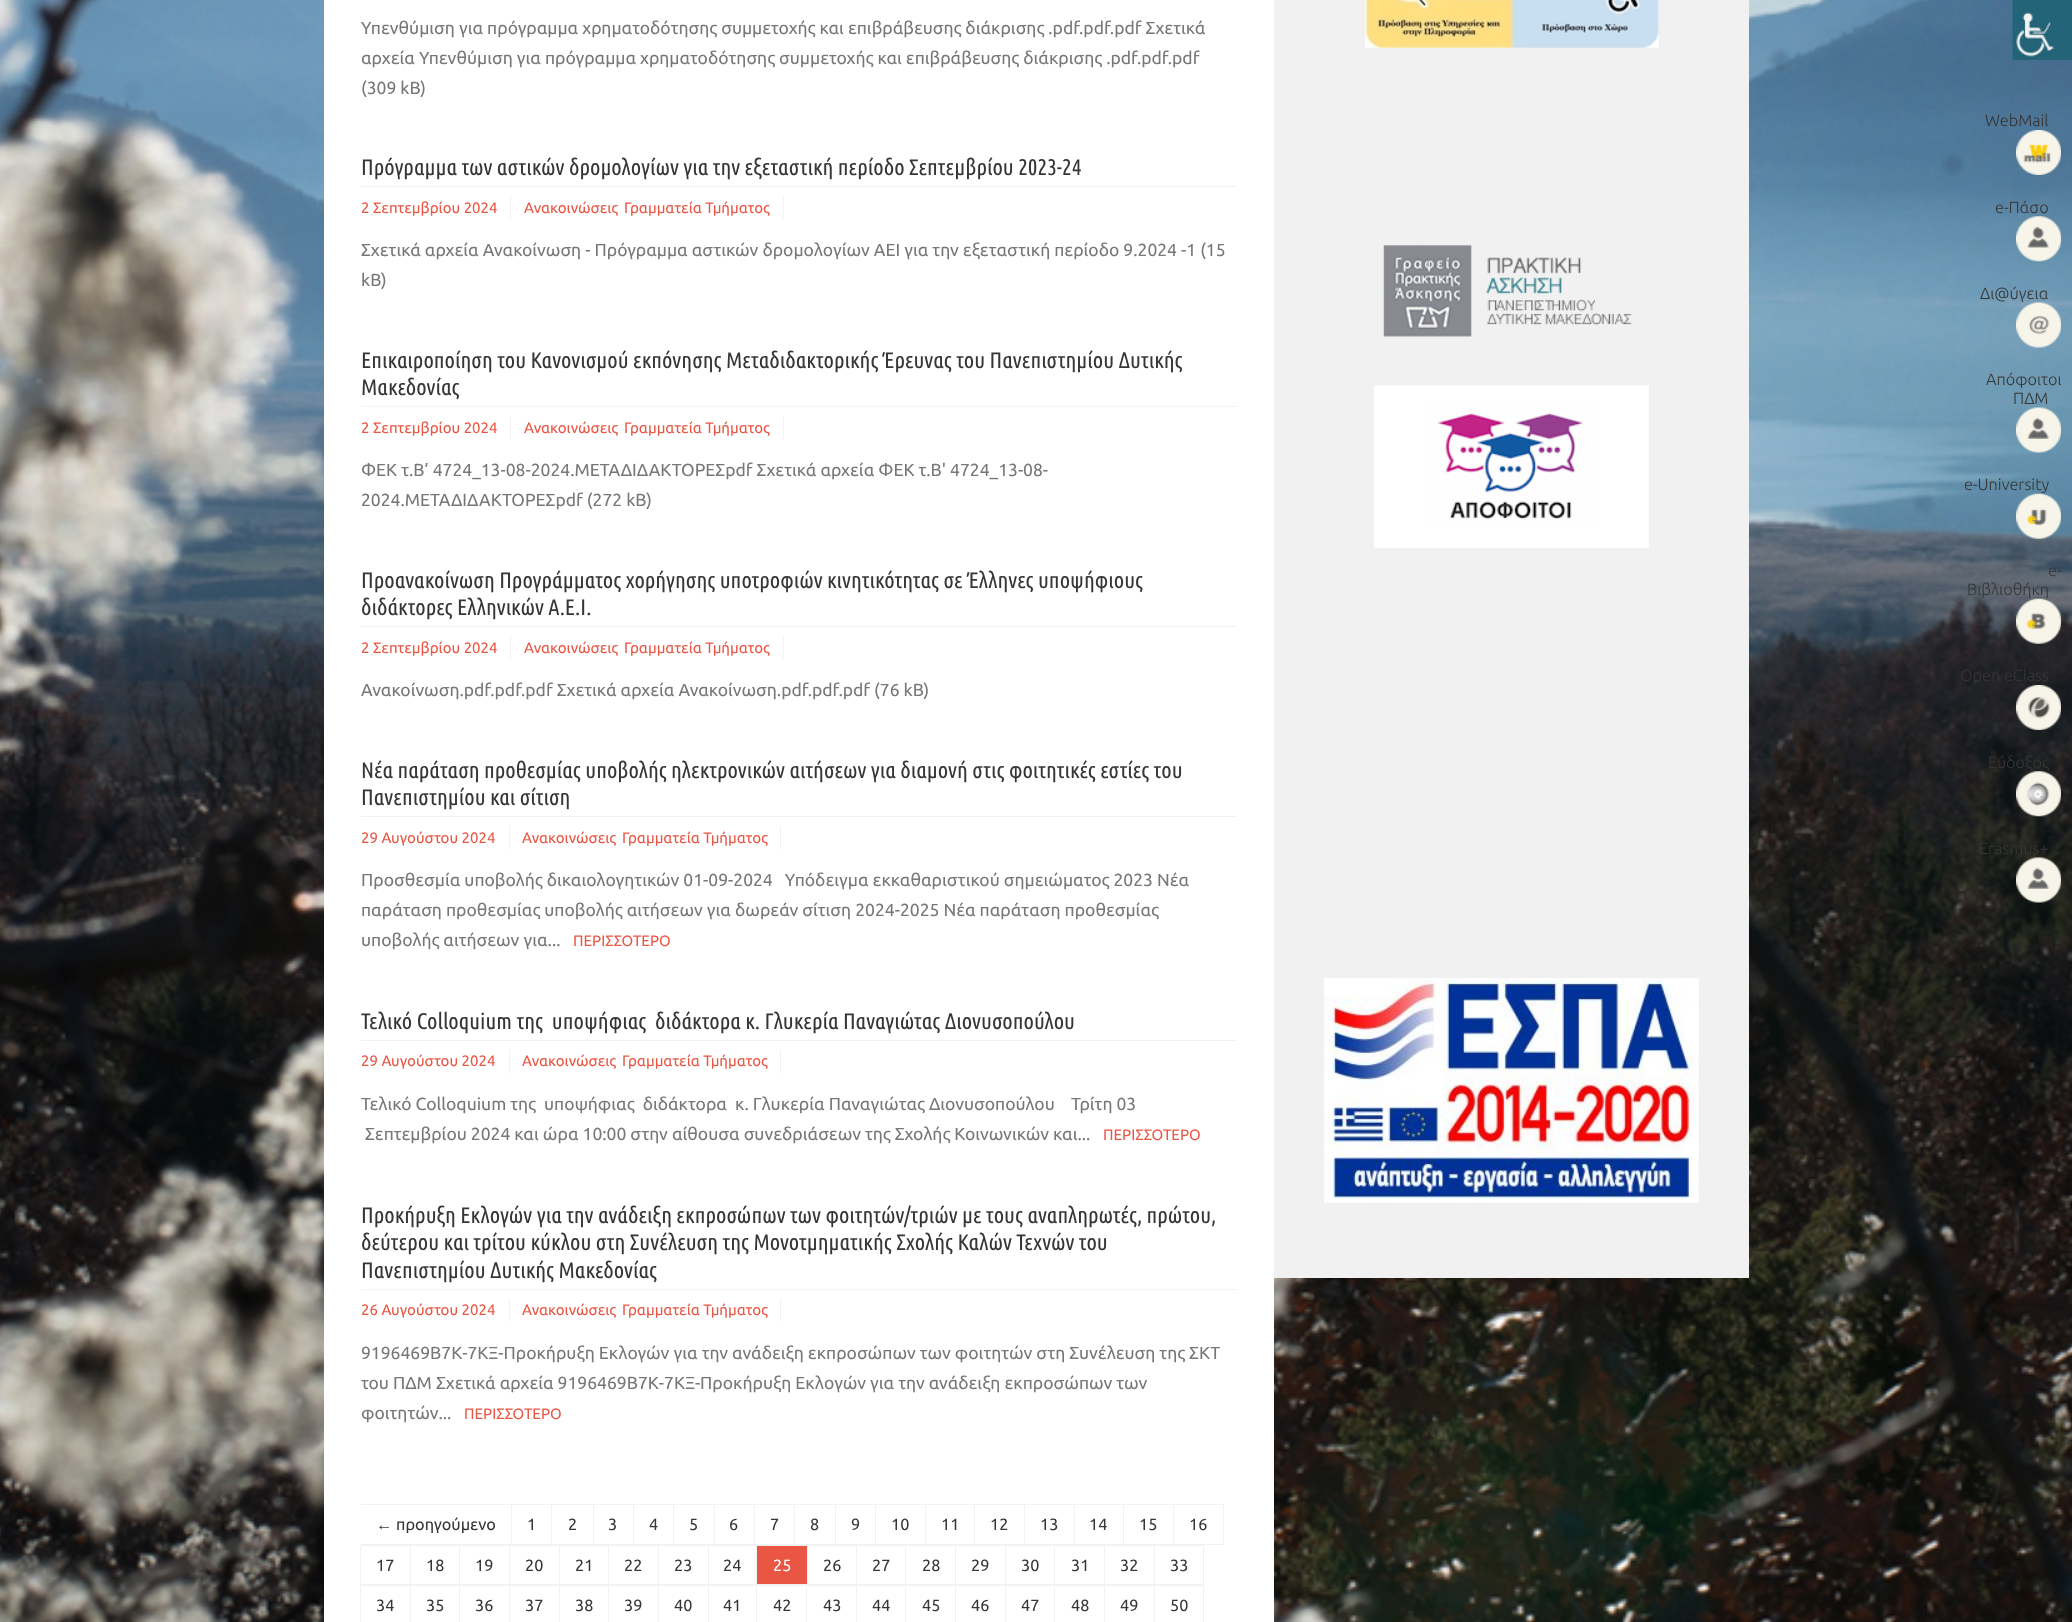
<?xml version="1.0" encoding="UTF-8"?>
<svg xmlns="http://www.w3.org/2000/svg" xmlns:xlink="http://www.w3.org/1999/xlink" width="2072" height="1622">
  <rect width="100%" height="100%" fill="#ffffff" />
  <image x="0" y="0" width="2072" height="1622" xlink:href="image1.png" />
  <rect x="324" width="950" height="1622" fill="#ffffff" />
  <rect x="361" y="186" width="875" height="1" fill="#f2f2f2" />
  <rect x="510" y="196" width="1" height="23" fill="#f2f2f2" />
  <rect x="783" y="196" width="1" height="23" fill="#f2f2f2" />
  <rect x="361" y="406" width="875" height="1" fill="#f2f2f2" />
  <rect x="510" y="416" width="1" height="23" fill="#f2f2f2" />
  <rect x="783" y="416" width="1" height="23" fill="#f2f2f2" />
  <rect x="361" y="626" width="875" height="1" fill="#f2f2f2" />
  <rect x="510" y="636" width="1" height="23" fill="#f2f2f2" />
  <rect x="783" y="636" width="1" height="23" fill="#f2f2f2" />
  <rect x="361" y="816" width="875" height="1" fill="#f2f2f2" />
  <rect x="509" y="826" width="1" height="23" fill="#f2f2f2" />
  <rect x="780" y="826" width="1" height="23" fill="#f2f2f2" />
  <rect x="361" y="1040" width="875" height="1" fill="#f2f2f2" />
  <rect x="509" y="1050" width="1" height="23" fill="#f2f2f2" />
  <rect x="780" y="1050" width="1" height="23" fill="#f2f2f2" />
  <rect x="361" y="1289" width="875" height="1" fill="#f2f2f2" />
  <rect x="509" y="1299" width="1" height="22" fill="#f2f2f2" />
  <rect x="780" y="1299" width="1" height="22" fill="#f2f2f2" />
  <rect x="361" y="1504" width="152" height="1" fill="#f2f2f2" />
  <rect x="361" y="1544" width="152" height="1" fill="#f2f2f2" />
  <rect x="511.5" y="1504.5" width="41" height="40" fill="none" stroke="#f2f2f2" />
  <rect x="552" y="1505" width="1" height="39" fill="#ffffff" />
  <rect x="551.5" y="1504.5" width="42" height="40" fill="none" stroke="#f2f2f2" />
  <rect x="593.5" y="1504.5" width="40" height="40" fill="none" stroke="#f2f2f2" />
  <rect x="633.5" y="1504.5" width="40" height="40" fill="none" stroke="#f2f2f2" />
  <rect x="673.5" y="1504.5" width="41" height="40" fill="none" stroke="#f2f2f2" />
  <rect x="714.5" y="1504.5" width="40" height="40" fill="none" stroke="#f2f2f2" />
  <rect x="754.5" y="1504.5" width="40" height="40" fill="none" stroke="#f2f2f2" />
  <rect x="794.5" y="1504.5" width="41" height="40" fill="none" stroke="#f2f2f2" />
  <rect x="835.5" y="1504.5" width="40" height="40" fill="none" stroke="#f2f2f2" />
  <rect x="875.5" y="1504.5" width="50" height="40" fill="none" stroke="#f2f2f2" />
  <rect x="925.5" y="1504.5" width="49" height="40" fill="none" stroke="#f2f2f2" />
  <rect x="974.5" y="1504.5" width="50" height="40" fill="none" stroke="#f2f2f2" />
  <rect x="1024.5" y="1504.5" width="50" height="40" fill="none" stroke="#f2f2f2" />
  <rect x="1074.5" y="1504.5" width="49" height="40" fill="none" stroke="#f2f2f2" />
  <rect x="1123.5" y="1504.5" width="50" height="40" fill="none" stroke="#f2f2f2" />
  <rect x="1173.5" y="1504.5" width="50" height="40" fill="none" stroke="#f2f2f2" />
  <rect x="360.5" y="1545.5" width="50" height="39" fill="none" stroke="#f2f2f2" />
  <rect x="410.5" y="1545.5" width="49" height="39" fill="none" stroke="#f2f2f2" />
  <rect x="459.5" y="1545.5" width="50" height="39" fill="none" stroke="#f2f2f2" />
  <rect x="509.5" y="1545.5" width="50" height="39" fill="none" stroke="#f2f2f2" />
  <rect x="559.5" y="1545.5" width="49" height="39" fill="none" stroke="#f2f2f2" />
  <rect x="608.5" y="1545.5" width="50" height="39" fill="none" stroke="#f2f2f2" />
  <rect x="658.5" y="1545.5" width="50" height="39" fill="none" stroke="#f2f2f2" />
  <rect x="708.5" y="1545.5" width="49" height="39" fill="none" stroke="#f2f2f2" />
  <rect x="806.5" y="1545.5" width="51" height="39" fill="none" stroke="#f2f2f2" />
  <rect x="756.5" y="1545.5" width="51" height="39" fill="#ea5644" stroke="#f2f2f2" />
  <rect x="857" y="1546" width="1" height="38" fill="#ffffff" />
  <rect x="856.5" y="1545.5" width="49" height="39" fill="none" stroke="#f2f2f2" />
  <rect x="905.5" y="1545.5" width="50" height="39" fill="none" stroke="#f2f2f2" />
  <rect x="955.5" y="1545.5" width="50" height="39" fill="none" stroke="#f2f2f2" />
  <rect x="1005.5" y="1545.5" width="49" height="39" fill="none" stroke="#f2f2f2" />
  <rect x="1054.5" y="1545.5" width="50" height="39" fill="none" stroke="#f2f2f2" />
  <rect x="1104.5" y="1545.5" width="50" height="39" fill="none" stroke="#f2f2f2" />
  <rect x="1154.5" y="1545.5" width="49" height="39" fill="none" stroke="#f2f2f2" />
  <rect x="360.5" y="1585.5" width="50" height="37" fill="none" stroke="#f2f2f2" />
  <rect x="410.5" y="1585.5" width="49" height="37" fill="none" stroke="#f2f2f2" />
  <rect x="459.5" y="1585.5" width="50" height="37" fill="none" stroke="#f2f2f2" />
  <rect x="509.5" y="1585.5" width="50" height="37" fill="none" stroke="#f2f2f2" />
  <rect x="559.5" y="1585.5" width="49" height="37" fill="none" stroke="#f2f2f2" />
  <rect x="608.5" y="1585.5" width="50" height="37" fill="none" stroke="#f2f2f2" />
  <rect x="658.5" y="1585.5" width="50" height="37" fill="none" stroke="#f2f2f2" />
  <rect x="708.5" y="1585.5" width="49" height="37" fill="none" stroke="#f2f2f2" />
  <rect x="757" y="1586" width="1" height="36" fill="#ffffff" />
  <rect x="756.5" y="1585.5" width="51" height="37" fill="none" stroke="#f2f2f2" />
  <rect x="807" y="1586" width="1" height="36" fill="#ffffff" />
  <rect x="806.5" y="1585.5" width="51" height="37" fill="none" stroke="#f2f2f2" />
  <rect x="857" y="1586" width="1" height="36" fill="#ffffff" />
  <rect x="856.5" y="1585.5" width="49" height="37" fill="none" stroke="#f2f2f2" />
  <rect x="905.5" y="1585.5" width="50" height="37" fill="none" stroke="#f2f2f2" />
  <rect x="955.5" y="1585.5" width="50" height="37" fill="none" stroke="#f2f2f2" />
  <rect x="1005.5" y="1585.5" width="49" height="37" fill="none" stroke="#f2f2f2" />
  <rect x="1054.5" y="1585.5" width="50" height="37" fill="none" stroke="#f2f2f2" />
  <rect x="1104.5" y="1585.5" width="50" height="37" fill="none" stroke="#f2f2f2" />
  <rect x="1154.5" y="1585.5" width="49" height="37" fill="none" stroke="#f2f2f2" />
  <rect x="1274" width="475" height="1278" fill="#f1f1f1" />
  <image x="1365" y="0" width="294" height="48" xlink:href="image2.png" />
  <image x="1383" y="245" width="249" height="92" xlink:href="image3.png" />
  <image x="1374" y="385" width="275" height="163" xlink:href="image4.png" />
  <image x="1324" y="978" width="375" height="225" xlink:href="image5.png" />
  <image x="2012" y="0" width="60" height="60" xlink:href="image6.png" />
  <image x="2016" y="130" width="45" height="45" xlink:href="image7.png" />
  <image x="2016" y="216" width="45" height="46" xlink:href="image8.png" />
  <image x="2016" y="302" width="45" height="46" xlink:href="image9.png" />
  <image x="2016" y="407" width="45" height="46" xlink:href="image10.png" />
  <image x="2016" y="598" width="45" height="46" xlink:href="image12.png" />
  <image x="2016" y="685" width="45" height="45" xlink:href="image13.png" />
  <image x="2016" y="857" width="45" height="46" xlink:href="image15.png" />
  <text x="361" y="34" style="font-family: Ubuntu; font-size: 17.5px; fill: #777777">Υπενθύμιση για πρόγραμμα χρηματοδότησης συμμετοχής και επιβράβευσης διάκρισης .pdf.pdf.pdf Σχετικά</text>
  <text x="361" y="64" style="font-family: Ubuntu; font-size: 17.5px; fill: #777777">αρχεία Υπενθύμιση για πρόγραμμα χρηματοδότησης συμμετοχής και επιβράβευσης διάκρισης .pdf.pdf.pdf</text>
  <text x="361" y="94" style="font-family: Ubuntu; font-size: 17.5px; fill: #777777">(309 kB)</text>
  <text x="361" y="175" style="font-family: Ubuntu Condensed; font-size: 22.5px; fill: #363636">Πρόγραμμα των αστικών δρομολογίων για την εξεταστική περίοδο Σεπτεμβρίου 2023-24</text>
  <text x="361" y="213" style="font-family: Ubuntu; font-size: 15px; fill: #ea5644">2 Σεπτεμβρίου 2024</text>
  <text x="524" y="213" style="font-family: Ubuntu; font-size: 15px; fill: #ea5644">Ανακοινώσεις</text>
  <text x="624" y="213" style="font-family: Ubuntu; font-size: 15px; fill: #ea5644">Γραμματεία Τμήματος</text>
  <text x="361" y="256" style="font-family: Ubuntu; font-size: 17.5px; fill: #777777">Σχετικά αρχεία Ανακοίνωση - Πρόγραμμα αστικών δρομολογίων ΑΕΙ για την εξεταστική περίοδο 9.2024 -1 (15</text>
  <text x="361" y="286" style="font-family: Ubuntu; font-size: 17.5px; fill: #777777">kB)</text>
  <text x="361" y="368" style="font-family: Ubuntu Condensed; font-size: 22.5px; fill: #363636">Επικαιροποίηση του Κανονισμού εκπόνησης Μεταδιδακτορικής Έρευνας του Πανεπιστημίου Δυτικής</text>
  <text x="361" y="395" style="font-family: Ubuntu Condensed; font-size: 22.5px; fill: #363636">Μακεδονίας</text>
  <text x="361" y="433" style="font-family: Ubuntu; font-size: 15px; fill: #ea5644">2 Σεπτεμβρίου 2024</text>
  <text x="524" y="433" style="font-family: Ubuntu; font-size: 15px; fill: #ea5644">Ανακοινώσεις</text>
  <text x="624" y="433" style="font-family: Ubuntu; font-size: 15px; fill: #ea5644">Γραμματεία Τμήματος</text>
  <text x="361" y="476" style="font-family: Ubuntu; font-size: 17.5px; fill: #777777">ΦΕΚ τ.Β’ 4724_13-08-2024.ΜΕΤΑΔΙΔΑΚΤΟΡΕΣpdf Σχετικά αρχεία ΦΕΚ τ.Β' 4724_13-08-</text>
  <text x="361" y="506" style="font-family: Ubuntu; font-size: 17.5px; fill: #777777">2024.ΜΕΤΑΔΙΔΑΚΤΟΡΕΣpdf (272 kB)</text>
  <text x="361" y="588" style="font-family: Ubuntu Condensed; font-size: 22.5px; fill: #363636">Προανακοίνωση Προγράμματος χορήγησης υποτροφιών κινητικότητας σε Έλληνες υποψήφιους</text>
  <text x="361" y="615" style="font-family: Ubuntu Condensed; font-size: 22.5px; fill: #363636">διδάκτορες Ελληνικών Α.Ε.Ι.</text>
  <text x="361" y="653" style="font-family: Ubuntu; font-size: 15px; fill: #ea5644">2 Σεπτεμβρίου 2024</text>
  <text x="524" y="653" style="font-family: Ubuntu; font-size: 15px; fill: #ea5644">Ανακοινώσεις</text>
  <text x="624" y="653" style="font-family: Ubuntu; font-size: 15px; fill: #ea5644">Γραμματεία Τμήματος</text>
  <text x="361" y="696" style="font-family: Ubuntu; font-size: 17.5px; fill: #777777">Ανακοίνωση.pdf.pdf.pdf Σχετικά αρχεία Ανακοίνωση.pdf.pdf.pdf (76 kB)</text>
  <text x="361" y="778" style="font-family: Ubuntu Condensed; font-size: 22.5px; fill: #363636">Νέα παράταση προθεσμίας υποβολής ηλεκτρονικών αιτήσεων για διαμονή στις φοιτητικές εστίες του</text>
  <text x="361" y="805" style="font-family: Ubuntu Condensed; font-size: 22.5px; fill: #363636">Πανεπιστημίου και σίτιση</text>
  <text x="361" y="843" style="font-family: Ubuntu; font-size: 15px; fill: #ea5644">29 Αυγούστου 2024</text>
  <text x="522" y="843" style="font-family: Ubuntu; font-size: 15px; fill: #ea5644">Ανακοινώσεις</text>
  <text x="622" y="843" style="font-family: Ubuntu; font-size: 15px; fill: #ea5644">Γραμματεία Τμήματος</text>
  <text x="361" y="886" style="font-family: Ubuntu; font-size: 17.5px; fill: #777777" xml:space="preserve">Προσθεσμία υποβολής δικαιολογητικών 01-09-2024   Υπόδειγμα εκκαθαριστικού σημειώματος 2023 Νέα</text>
  <text x="361" y="916" style="font-family: Ubuntu; font-size: 17.5px; fill: #777777">παράταση προθεσμίας υποβολής αιτήσεων για δωρεάν σίτιση 2024-2025 Νέα παράταση προθεσμίας</text>
  <text x="361" y="946" style="font-family: Ubuntu; font-size: 17.5px; fill: #777777">υποβολής αιτήσεων για...</text>
  <text x="573" y="946" style="font-family: Ubuntu; font-size: 15px; fill: #ea5644">ΠΕΡΙΣΣΟΤΕΡΟ</text>
  <text x="361" y="1029" style="font-family: Ubuntu Condensed; font-size: 22.5px; fill: #363636" xml:space="preserve">Τελικό Colloquium της  υποψήφιας  διδάκτορα κ. Γλυκερία Παναγιώτας Διονυσοπούλου</text>
  <text x="361" y="1066" style="font-family: Ubuntu; font-size: 15px; fill: #ea5644">29 Αυγούστου 2024</text>
  <text x="522" y="1066" style="font-family: Ubuntu; font-size: 15px; fill: #ea5644">Ανακοινώσεις</text>
  <text x="622" y="1066" style="font-family: Ubuntu; font-size: 15px; fill: #ea5644">Γραμματεία Τμήματος</text>
  <text x="361" y="1110" style="font-family: Ubuntu; font-size: 17.5px; fill: #777777" xml:space="preserve">Τελικό Colloquium της  υποψήφιας  διδάκτορα  κ. Γλυκερία Παναγιώτας Διονυσοπούλου    Τρίτη 03</text>
  <text x="365" y="1140" style="font-family: Ubuntu; font-size: 17.5px; fill: #777777">Σεπτεμβρίου 2024 και ώρα 10:00 στην αίθουσα συνεδριάσεων της Σχολής Κοινωνικών και...</text>
  <text x="1103" y="1140" style="font-family: Ubuntu; font-size: 15px; fill: #ea5644">ΠΕΡΙΣΣΟΤΕΡΟ</text>
  <text x="361" y="1223" style="font-family: Ubuntu Condensed; font-size: 22.5px; fill: #363636">Προκήρυξη Εκλογών για την ανάδειξη εκπροσώπων των φοιτητών/τριών με τους αναπληρωτές, πρώτου,</text>
  <text x="361" y="1250" style="font-family: Ubuntu Condensed; font-size: 22.5px; fill: #363636">δεύτερου και τρίτου κύκλου στη Συνέλευση της Μονοτμηματικής Σχολής Καλών Τεχνών του</text>
  <text x="361" y="1278" style="font-family: Ubuntu Condensed; font-size: 22.5px; fill: #363636">Πανεπιστημίου Δυτικής Μακεδονίας</text>
  <text x="361" y="1315" style="font-family: Ubuntu; font-size: 15px; fill: #ea5644">26 Αυγούστου 2024</text>
  <text x="522" y="1315" style="font-family: Ubuntu; font-size: 15px; fill: #ea5644">Ανακοινώσεις</text>
  <text x="622" y="1315" style="font-family: Ubuntu; font-size: 15px; fill: #ea5644">Γραμματεία Τμήματος</text>
  <text x="361" y="1359" style="font-family: Ubuntu; font-size: 17.5px; fill: #777777">9196469Β7Κ-7ΚΞ-Προκήρυξη Εκλογών για την ανάδειξη εκπροσώπων των φοιτητών στη Συνέλευση της ΣΚΤ</text>
  <text x="361" y="1389" style="font-family: Ubuntu; font-size: 17.5px; fill: #777777">του ΠΔΜ Σχετικά αρχεία 9196469Β7Κ-7ΚΞ-Προκήρυξη Εκλογών για την ανάδειξη εκπροσώπων των</text>
  <text x="361" y="1419" style="font-family: Ubuntu; font-size: 17.5px; fill: #777777">φοιτητών...</text>
  <text x="464" y="1419" style="font-family: Ubuntu; font-size: 15px; fill: #ea5644">ΠΕΡΙΣΣΟΤΕΡΟ</text>
  <text x="376" y="1530" style="font-family: Liberation Sans; font-size: 16.25px; fill: #363636">←</text>
  <text x="396" y="1530" style="font-family: Ubuntu; font-size: 16.25px; fill: #363636">προηγούμενο</text>
  <text x="527" y="1530" style="font-family: Ubuntu; font-size: 16.25px; fill: #363636">1</text>
  <text x="568" y="1530" style="font-family: Ubuntu; font-size: 16.25px; fill: #363636">2</text>
  <text x="608" y="1530" style="font-family: Ubuntu; font-size: 16.25px; fill: #363636">3</text>
  <text x="649" y="1530" style="font-family: Ubuntu; font-size: 16.25px; fill: #363636">4</text>
  <text x="689" y="1530" style="font-family: Ubuntu; font-size: 16.25px; fill: #363636">5</text>
  <text x="729" y="1530" style="font-family: Ubuntu; font-size: 16.25px; fill: #363636">6</text>
  <text x="770" y="1530" style="font-family: Ubuntu; font-size: 16.25px; fill: #363636">7</text>
  <text x="810" y="1530" style="font-family: Ubuntu; font-size: 16.25px; fill: #363636">8</text>
  <text x="851" y="1530" style="font-family: Ubuntu; font-size: 16.25px; fill: #363636">9</text>
  <text x="891" y="1530" style="font-family: Ubuntu; font-size: 16.25px; fill: #363636">10</text>
  <text x="941" y="1530" style="font-family: Ubuntu; font-size: 16.25px; fill: #363636">11</text>
  <text x="990" y="1530" style="font-family: Ubuntu; font-size: 16.25px; fill: #363636">12</text>
  <text x="1040" y="1530" style="font-family: Ubuntu; font-size: 16.25px; fill: #363636">13</text>
  <text x="1089" y="1530" style="font-family: Ubuntu; font-size: 16.25px; fill: #363636">14</text>
  <text x="1139" y="1530" style="font-family: Ubuntu; font-size: 16.25px; fill: #363636">15</text>
  <text x="1189" y="1530" style="font-family: Ubuntu; font-size: 16.25px; fill: #363636">16</text>
  <text x="376" y="1571" style="font-family: Ubuntu; font-size: 16.25px; fill: #363636">17</text>
  <text x="426" y="1571" style="font-family: Ubuntu; font-size: 16.25px; fill: #363636">18</text>
  <text x="475" y="1571" style="font-family: Ubuntu; font-size: 16.25px; fill: #363636">19</text>
  <text x="525" y="1571" style="font-family: Ubuntu; font-size: 16.25px; fill: #363636">20</text>
  <text x="575" y="1571" style="font-family: Ubuntu; font-size: 16.25px; fill: #363636">21</text>
  <text x="624" y="1571" style="font-family: Ubuntu; font-size: 16.25px; fill: #363636">22</text>
  <text x="674" y="1571" style="font-family: Ubuntu; font-size: 16.25px; fill: #363636">23</text>
  <text x="723" y="1571" style="font-family: Ubuntu; font-size: 16.25px; fill: #363636">24</text>
  <text x="773" y="1571" style="font-family: Ubuntu; font-size: 16.25px; fill: #ffffff">25</text>
  <text x="823" y="1571" style="font-family: Ubuntu; font-size: 16.25px; fill: #363636">26</text>
  <text x="872" y="1571" style="font-family: Ubuntu; font-size: 16.25px; fill: #363636">27</text>
  <text x="922" y="1571" style="font-family: Ubuntu; font-size: 16.25px; fill: #363636">28</text>
  <text x="971" y="1571" style="font-family: Ubuntu; font-size: 16.25px; fill: #363636">29</text>
  <text x="1021" y="1571" style="font-family: Ubuntu; font-size: 16.25px; fill: #363636">30</text>
  <text x="1071" y="1571" style="font-family: Ubuntu; font-size: 16.25px; fill: #363636">31</text>
  <text x="1120" y="1571" style="font-family: Ubuntu; font-size: 16.25px; fill: #363636">32</text>
  <text x="1170" y="1571" style="font-family: Ubuntu; font-size: 16.25px; fill: #363636">33</text>
  <text x="376" y="1611" style="font-family: Ubuntu; font-size: 16.25px; fill: #363636">34</text>
  <text x="426" y="1611" style="font-family: Ubuntu; font-size: 16.25px; fill: #363636">35</text>
  <text x="475" y="1611" style="font-family: Ubuntu; font-size: 16.25px; fill: #363636">36</text>
  <text x="525" y="1611" style="font-family: Ubuntu; font-size: 16.25px; fill: #363636">37</text>
  <text x="575" y="1611" style="font-family: Ubuntu; font-size: 16.25px; fill: #363636">38</text>
  <text x="624" y="1611" style="font-family: Ubuntu; font-size: 16.25px; fill: #363636">39</text>
  <text x="674" y="1611" style="font-family: Ubuntu; font-size: 16.25px; fill: #363636">40</text>
  <text x="723" y="1611" style="font-family: Ubuntu; font-size: 16.25px; fill: #363636">41</text>
  <text x="773" y="1611" style="font-family: Ubuntu; font-size: 16.25px; fill: #363636">42</text>
  <text x="823" y="1611" style="font-family: Ubuntu; font-size: 16.25px; fill: #363636">43</text>
  <text x="872" y="1611" style="font-family: Ubuntu; font-size: 16.25px; fill: #363636">44</text>
  <text x="922" y="1611" style="font-family: Ubuntu; font-size: 16.25px; fill: #363636">45</text>
  <text x="971" y="1611" style="font-family: Ubuntu; font-size: 16.25px; fill: #363636">46</text>
  <text x="1021" y="1611" style="font-family: Ubuntu; font-size: 16.25px; fill: #363636">47</text>
  <text x="1071" y="1611" style="font-family: Ubuntu; font-size: 16.25px; fill: #363636">48</text>
  <text x="1120" y="1611" style="font-family: Ubuntu; font-size: 16.25px; fill: #363636">49</text>
  <text x="1170" y="1611" style="font-family: Ubuntu; font-size: 16.25px; fill: #363636">50</text>
  <text x="1985" y="126" style="font-family: Ubuntu; font-size: 16.25px; font-weight: 300; fill: #363636">WebMail</text>
  <text x="1995" y="213" style="font-family: Ubuntu; font-size: 16.25px; font-weight: 300; fill: #363636">e-Πάσο</text>
  <text x="1980" y="299" style="font-family: Ubuntu; font-size: 16.25px; font-weight: 300; fill: #363636">Δι@ύγεια</text>
  <text x="1986" y="385" style="font-family: Ubuntu; font-size: 16.25px; font-weight: 300; fill: #363636">Απόφοιτοι</text>
  <text x="2013" y="404" style="font-family: Ubuntu; font-size: 16.25px; font-weight: 300; fill: #363636">ΠΔΜ</text>
  <text x="1964" y="490" style="font-family: Ubuntu; font-size: 16.25px; font-weight: 300; fill: #363636">e-University</text>
  <image x="2016" y="493" width="45" height="46" xlink:href="image11.png" />
  <text x="2048" y="576" style="font-family: Ubuntu; font-size: 16.25px; font-weight: 300; fill: #363636">e-</text>
  <text x="1967" y="595" style="font-family: Ubuntu; font-size: 16.25px; font-weight: 300; fill: #363636">Βιβλιοθήκη</text>
  <text x="1960" y="681" style="font-family: Ubuntu; font-size: 16.25px; font-weight: 300; fill: #363636">Open eClass</text>
  <text x="1988" y="768" style="font-family: Ubuntu; font-size: 16.25px; font-weight: 300; fill: #363636">Εύδοξος</text>
  <image x="2016" y="771" width="45" height="46" xlink:href="image14.png" />
  <text x="1979" y="854" style="font-family: Ubuntu; font-size: 16.25px; font-weight: 300; fill: #363636">Erasmus+</text>
</svg>
